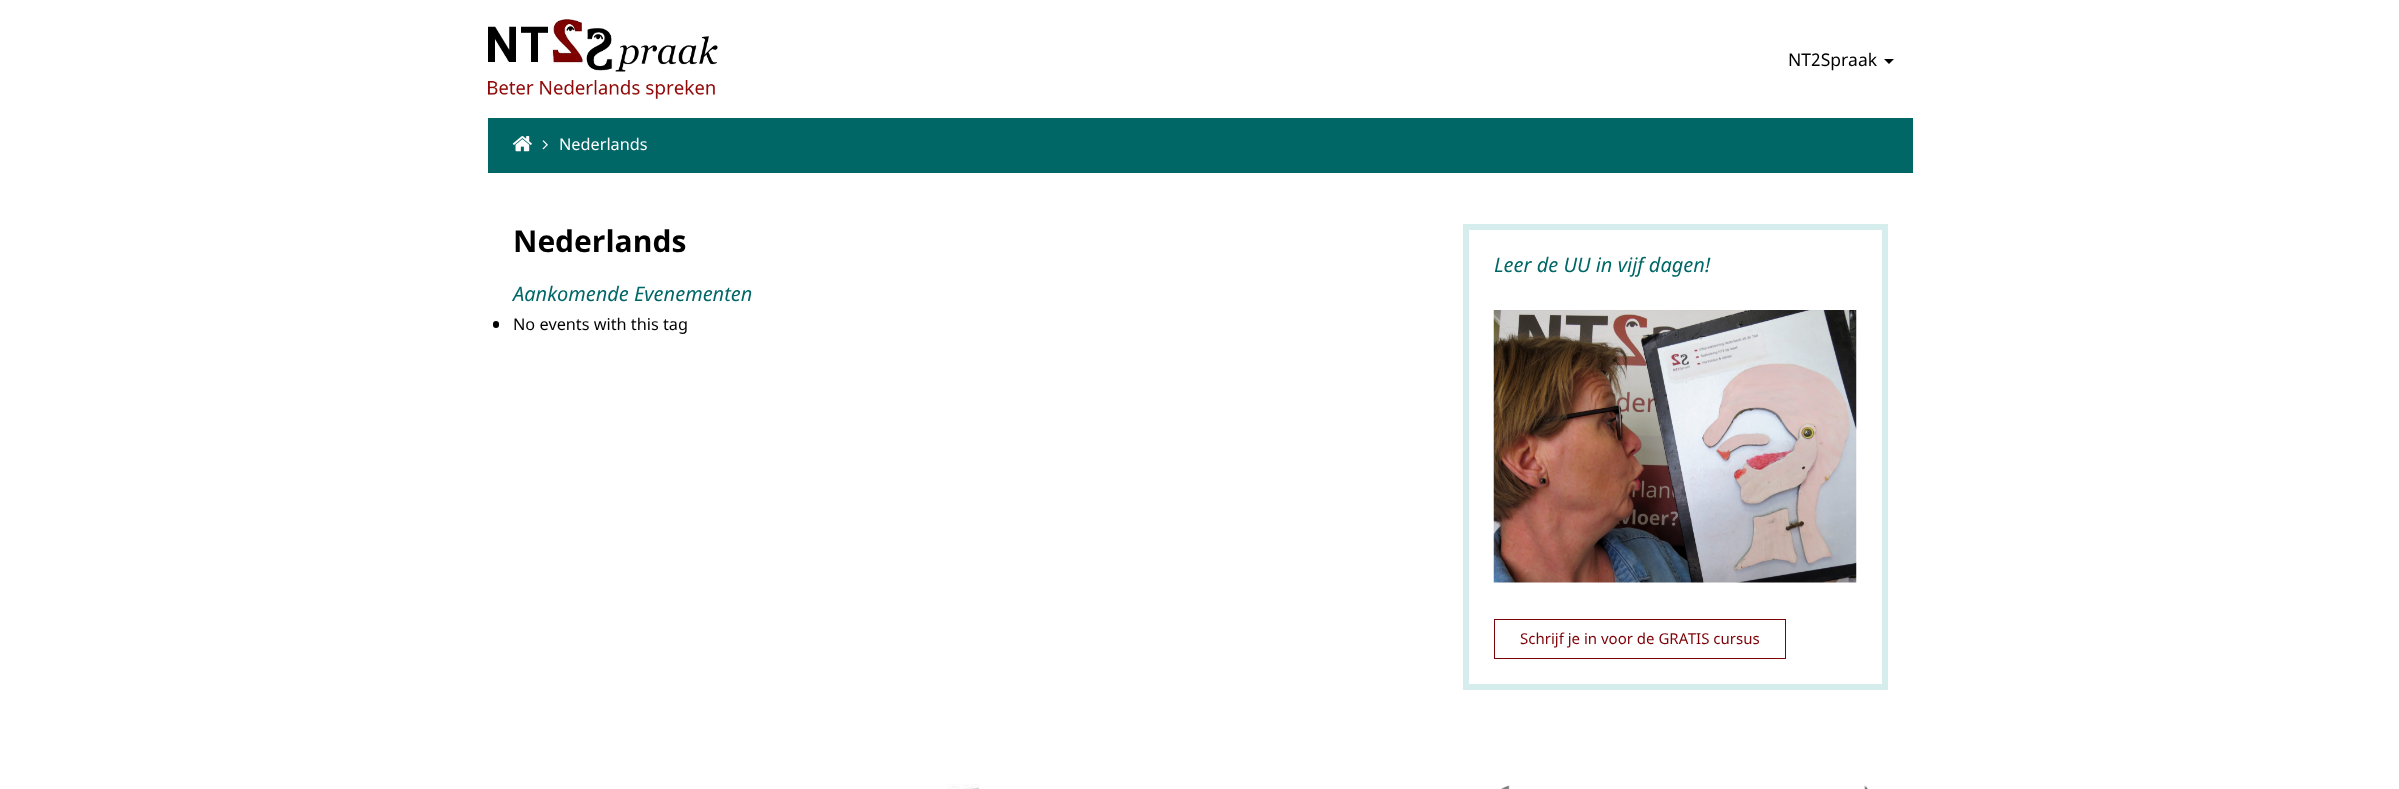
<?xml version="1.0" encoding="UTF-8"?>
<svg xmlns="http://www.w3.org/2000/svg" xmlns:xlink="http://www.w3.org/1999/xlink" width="2399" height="789">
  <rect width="100%" height="100%" fill="#ffffff" />
  <image x="488" y="19" width="230" height="80" xlink:href="image1.png" />
  <path d="M 1884 59 h 10 l -5 5 z" fill="#000000" />
  <rect x="488" y="118" width="1425" height="55" fill="#006666" />
  <image x="512" y="136" width="20" height="16" xlink:href="image2.png" />
  <image x="542" y="140" width="6" height="10" xlink:href="image3.png" />
  <rect x="493" y="321" width="6" height="7" rx="3" fill="#000000" />
  <rect x="1466" y="227" width="419" height="460" fill="none" stroke="#d5eded" stroke-width="6" />
  <image x="1493" y="310" width="364" height="273" xlink:href="image4.png" />
  <rect x="1494.5" y="619.5" width="291" height="39" fill="none" stroke="#7d0207" />
  <image x="947" y="784" width="33" height="5" xlink:href="image5.png" />
  <image x="1501" y="785" width="9" height="4" xlink:href="image6.png" />
  <image x="1864" y="785" width="5" height="4" xlink:href="image7.png" />
  <text x="1788" y="66" style="font-family: Noto Sans; font-size: 17.5px; fill: #000000">NT2Spraak</text>
  <text x="559" y="150" style="font-family: Noto Sans; font-size: 16.25px; fill: #ffffff">Nederlands</text>
  <text x="513" y="252" style="font-family: Noto Sans; font-size: 30px; font-weight: bold; fill: #000000">Nederlands</text>
  <text x="513" y="301" style="font-family: Noto Sans; font-size: 20px; font-style: italic; fill: #006666">Aankomende Evenementen</text>
  <text x="513" y="330" style="font-family: Noto Sans; font-size: 16.25px; fill: #000000">No events with this tag</text>
  <text x="1494" y="272" style="font-family: Noto Sans; font-size: 20px; font-style: italic; fill: #006666">Leer de UU in vijf dagen!</text>
  <text x="1520" y="644" style="font-family: Noto Sans; font-size: 15px; fill: #7d0207">Schrijf je in voor de GRATIS cursus</text>
</svg>
